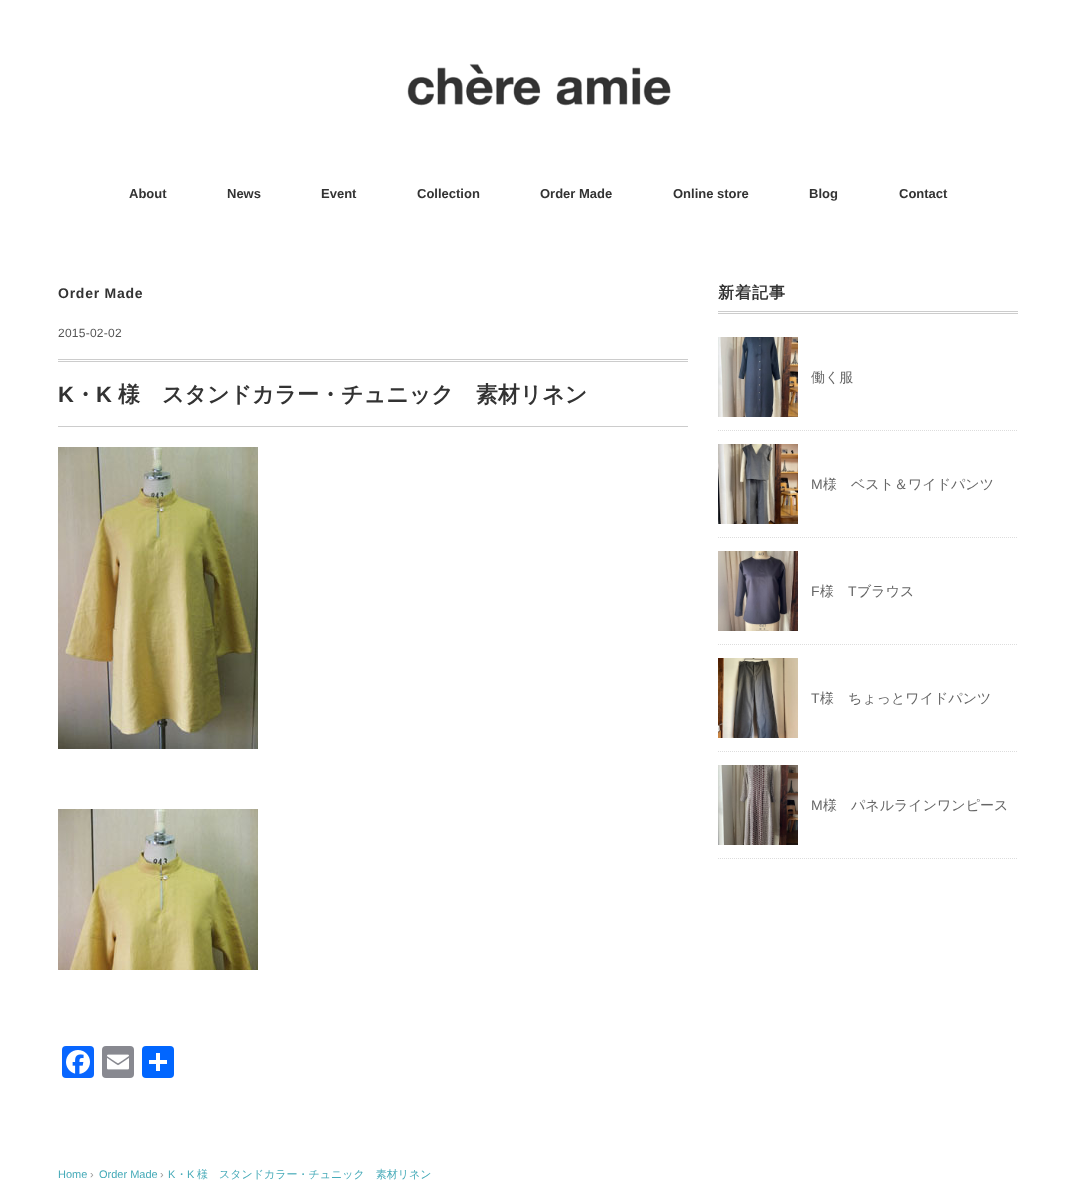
<?xml version="1.0" encoding="UTF-8"?>
<svg xmlns="http://www.w3.org/2000/svg" xmlns:xlink="http://www.w3.org/1999/xlink" width="1076" height="1182">
  <rect width="100%" height="100%" fill="#ffffff" />
  <image x="407" y="63" width="264" height="43" xlink:href="image1.png" />
  <rect x="58" y="359" width="630" height="1" fill="#cccccc" />
  <rect x="58" y="361" width="630" height="1" fill="#cccccc" />
  <rect x="58" y="426" width="630" height="1" fill="#cccccc" />
  <image x="58" y="447" width="200" height="302" xlink:href="image2.png" />
  <image x="58" y="809" width="200" height="161" xlink:href="image3.png" />
  <rect x="62" y="1046" width="32" height="32" rx="4" fill="#0866ff" />
  <image x="66" y="1050" width="24" height="24" xlink:href="image4.png" />
  <rect x="102" y="1046" width="32" height="32" rx="4" fill="#888990" />
  <image x="107" y="1054" width="22" height="16" xlink:href="image5.png" />
  <rect x="142" y="1046" width="32" height="32" rx="4" fill="#0166ff" />
  <rect x="156" y="1053" width="4" height="18" fill="#ffffff" />
  <rect x="149" y="1060" width="18" height="4" fill="#ffffff" />
  <rect x="718" y="311" width="300" height="1" fill="#cccccc" />
  <rect x="718" y="313" width="300" height="1" fill="#cccccc" />
  <path d="M 718 430.5 h 300" fill="none" stroke="#dddddd" stroke-dasharray="1 1" />
  <image x="718" y="337" width="80" height="80" xlink:href="image6.png" />
  <path d="M 718 537.5 h 300" fill="none" stroke="#dddddd" stroke-dasharray="1 1" />
  <image x="718" y="444" width="80" height="80" xlink:href="image7.png" />
  <path d="M 718 644.5 h 300" fill="none" stroke="#dddddd" stroke-dasharray="1 1" />
  <image x="718" y="551" width="80" height="80" xlink:href="image8.png" />
  <path d="M 718 751.5 h 300" fill="none" stroke="#dddddd" stroke-dasharray="1 1" />
  <image x="718" y="658" width="80" height="80" xlink:href="image9.png" />
  <path d="M 718 858.5 h 300" fill="none" stroke="#dddddd" stroke-dasharray="1 1" />
  <image x="718" y="765" width="80" height="80" xlink:href="image10.png" />
  <text x="129" y="198" style="font-family: Liberation Sans; font-size: 13px; font-weight: bold; fill: #333333">About</text>
  <text x="227" y="198" style="font-family: Liberation Sans; font-size: 13px; font-weight: bold; fill: #333333">News</text>
  <text x="321" y="198" style="font-family: Liberation Sans; font-size: 13px; font-weight: bold; fill: #333333">Event</text>
  <text x="417" y="198" style="font-family: Liberation Sans; font-size: 13px; font-weight: bold; fill: #333333">Collection</text>
  <text x="540" y="198" style="font-family: Liberation Sans; font-size: 13px; font-weight: bold; fill: #333333">Order Made</text>
  <text x="673" y="198" style="font-family: Liberation Sans; font-size: 13px; font-weight: bold; fill: #333333">Online store</text>
  <text x="809" y="198" style="font-family: Liberation Sans; font-size: 13px; font-weight: bold; fill: #333333">Blog</text>
  <text x="899" y="198" style="font-family: Liberation Sans; font-size: 13px; font-weight: bold; fill: #333333">Contact</text>
  <text x="58" y="298" style="font-family: Liberation Sans; font-size: 14px; font-weight: bold; letter-spacing: 0.75px; fill: #333333">Order Made</text>
  <text x="58" y="337" style="font-family: Liberation Sans; font-size: 12px; letter-spacing: 0.25px; fill: #555555">2015-02-02</text>
  <text x="58" y="402" style="font-family: Liberation Sans; font-size: 22px; font-weight: bold; fill: #333333">K</text>
  <text x="74" y="402" style="font-family: WenQuanYi Zen Hei; font-size: 22px; font-weight: bold; fill: #333333">・</text>
  <text x="96" y="402" style="font-family: Liberation Sans; font-size: 22px; font-weight: bold; fill: #333333">K</text>
  <text x="118" y="402" style="font-family: WenQuanYi Zen Hei; font-size: 22px; font-weight: bold; fill: #333333">様　スタンドカラー・チュニック　素材リネン</text>
  <text x="58" y="1178" style="font-family: Liberation Sans; font-size: 11px; fill: #45aab8">Home</text>
  <text x="90" y="1178" style="font-family: Liberation Sans; font-size: 11px; fill: #999999">›</text>
  <text x="99" y="1178" style="font-family: Liberation Sans; font-size: 11px; fill: #45aab8">Order Made</text>
  <text x="160" y="1178" style="font-family: Liberation Sans; font-size: 11px; fill: #999999">›</text>
  <text x="168" y="1178" style="font-family: Liberation Sans; font-size: 11px; fill: #45aab8">K</text>
  <text x="176" y="1178" style="font-family: WenQuanYi Zen Hei; font-size: 11px; font-weight: 500; fill: #45aab8">・</text>
  <text x="187" y="1178" style="font-family: Liberation Sans; font-size: 11px; fill: #45aab8">K</text>
  <text x="197" y="1178" style="font-family: WenQuanYi Zen Hei; font-size: 11px; font-weight: 500; fill: #45aab8">様　スタンドカラー・チュニック　素材リネン</text>
  <text x="718" y="298" style="font-family: WenQuanYi Zen Hei; font-size: 16px; font-weight: bold; letter-spacing: 1px; fill: #333333">新着記事</text>
  <text x="811" y="382" style="font-family: WenQuanYi Zen Hei; font-size: 14px; font-weight: 500; fill: #666666">働く服</text>
  <text x="811" y="489" style="font-family: Liberation Sans; font-size: 14px; fill: #666666">M</text>
  <text x="823" y="489" style="font-family: WenQuanYi Zen Hei; font-size: 14px; font-weight: 500; fill: #666666">様　ベスト＆ワイドパンツ</text>
  <text x="811" y="596" style="font-family: Liberation Sans; font-size: 14px; fill: #666666">F</text>
  <text x="820" y="596" style="font-family: WenQuanYi Zen Hei; font-size: 14px; font-weight: 500; fill: #666666">様</text>
  <text x="848" y="596" style="font-family: Liberation Sans; font-size: 14px; fill: #666666">T</text>
  <text x="857" y="596" style="font-family: WenQuanYi Zen Hei; font-size: 14px; font-weight: 500; fill: #666666">ブラウス</text>
  <text x="811" y="703" style="font-family: Liberation Sans; font-size: 14px; fill: #666666">T</text>
  <text x="820" y="703" style="font-family: WenQuanYi Zen Hei; font-size: 14px; font-weight: 500; fill: #666666">様　ちょっとワイドパンツ</text>
  <text x="811" y="810" style="font-family: Liberation Sans; font-size: 14px; fill: #666666">M</text>
  <text x="823" y="810" style="font-family: WenQuanYi Zen Hei; font-size: 14px; font-weight: 500; fill: #666666">様　パネルラインワンピース</text>
</svg>
